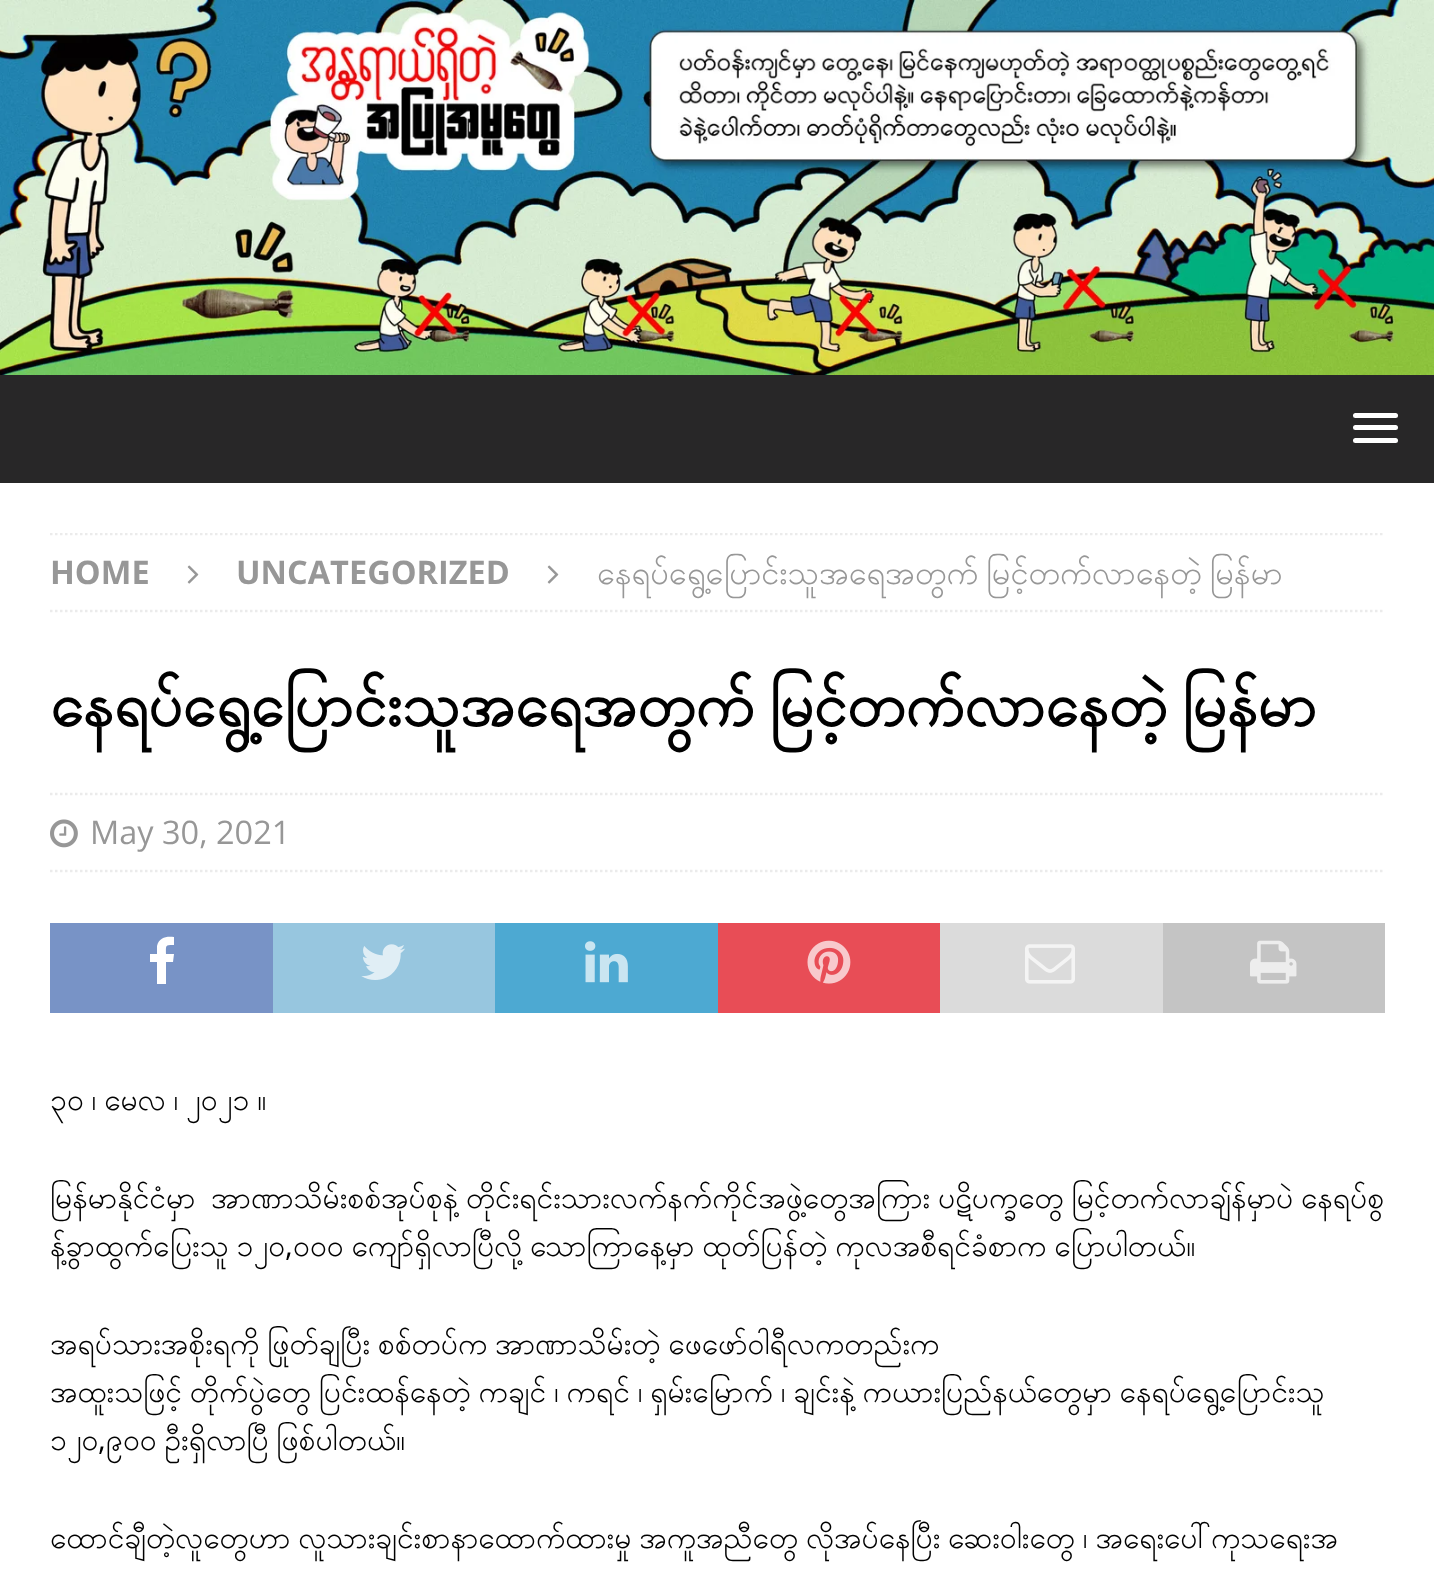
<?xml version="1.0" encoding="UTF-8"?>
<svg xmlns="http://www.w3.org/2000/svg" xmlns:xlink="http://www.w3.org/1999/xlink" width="1434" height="1576">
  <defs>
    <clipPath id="clip1"><rect x="50" y="533" width="1335" height="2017" /></clipPath>
  </defs>
  <rect width="100%" height="100%" fill="#282728" />
  <image x="0" y="0" width="1434" height="375" xlink:href="image1.png" />
  <rect x="1353" y="413" width="45" height="5" rx="2.5" fill="#ffffff" />
  <rect x="1353" y="425" width="45" height="5" rx="2.5" fill="#ffffff" />
  <rect x="1353" y="438" width="45" height="5" rx="2.5" fill="#ffffff" />
  <rect y="483" width="1434" height="1093" fill="#ffffff" />
  <g clip-path="url(#clip1)">
    <path d="M 50 534 h 1335" fill="none" stroke="#ebebeb" stroke-width="2.5" stroke-dasharray="2.5 2.5" />
  </g>
  <path d="M 50 611 h 1335" fill="none" stroke="#ebebeb" stroke-width="2.5" stroke-dasharray="2.5 2.5" />
  <image x="187" y="565" width="12" height="19" xlink:href="image2.png" />
  <image x="547" y="565" width="12" height="19" xlink:href="image2.png" />
  <path d="M 50 794 h 1335" fill="none" stroke="#ebebeb" stroke-width="2.5" stroke-dasharray="2.5 2.5" />
  <path d="M 50 871 h 1335" fill="none" stroke="#ebebeb" stroke-width="2.5" stroke-dasharray="2.5 2.5" />
  <image x="50" y="819" width="28" height="29" xlink:href="image3.png" />
  <rect x="50" y="923" width="223" height="90" fill="#7893c6" />
  <path d="M 174 937 v 8 c -9 0 -8 0 -8 9 h 8 l -1 8 h -7 v 22 h -9 v -22 h -7 v -8 h 7 v -8 c 2 -9 10 -10 17 -9 z" fill="#ffffff" />
  <rect x="273" y="923" width="222" height="90" fill="#97c6df" />
  <image x="361" y="944" width="44" height="36" xlink:href="image4.png" />
  <rect x="495" y="923" width="223" height="90" fill="#4da9d2" />
  <image x="585" y="941" width="43" height="42" xlink:href="image5.png" />
  <rect x="718" y="923" width="222" height="90" fill="#e84d56" />
  <image x="807" y="940" width="44" height="44" xlink:href="image6.png" />
  <rect x="940" y="923" width="223" height="90" fill="#dbdbdb" />
  <image x="1025" y="944" width="50" height="40" xlink:href="image7.png" />
  <rect x="1163" y="923" width="222" height="90" fill="#c4c4c4" />
  <image x="1250" y="940" width="47" height="44" xlink:href="image8.png" />
  <text x="50" y="584" style="font-family: Open Sans; font-size: 32.5px; font-weight: bold; fill: #979797">HOME</text>
  <text x="236" y="584" style="font-family: Open Sans; font-size: 32.5px; font-weight: bold; fill: #979797">UNCATEGORIZED</text>
  <text x="597" y="584" word-spacing="-4" style="font-family: Padauk; font-size: 32.5px; fill: #979797">နေရပ်ရွေ့ပြောင်းသူအရေအတွက် မြင့်တက်လာနေတဲ့ မြန်မာ</text>
  <text x="50" y="726" word-spacing="-7" style="font-family: Padauk; font-size: 60px; font-weight: bold; fill: #000000">နေရပ်ရွေ့ပြောင်းသူအရေအတွက် မြင့်တက်လာနေတဲ့ မြန်မာ</text>
  <text x="90" y="844" style="font-family: Open Sans; font-size: 32.5px; fill: #979797">May 30, 2021</text>
  <text x="50" y="1110" word-spacing="-3.25" style="font-family: Padauk; font-size: 30px; fill: #000000">၃၀ ၊ မေလ ၊ ၂၀၂၁ ။</text>
  <text x="50" y="1208" word-spacing="-3.25" style="font-family: Padauk; font-size: 30px; fill: #000000" xml:space="preserve">မြန်မာနိုင်ငံမှာ  အာဏာသိမ်းစစ်အုပ်စုနဲ့ တိုင်းရင်းသားလက်နက်ကိုင်အဖွဲ့တွေအကြား ပဋိပက္ခတွေ မြင့်တက်လာချ်န်မှာပဲ နေရပ်စွ</text>
  <g clip-path="url(#clip1)">
    <text x="50" y="1256" word-spacing="-3.25" style="font-family: Padauk; font-size: 30px; fill: #000000">န့်ခွာထွက်ပြေးသူ ၁၂၀</text>
  </g>
  <text x="285" y="1256" style="font-family: Open Sans; font-size: 30px; fill: #000000">,</text>
  <text x="293" y="1256" word-spacing="-3.25" style="font-family: Padauk; font-size: 30px; fill: #000000">၀၀၀ ကျော်ရှိလာပြီလို့ သောကြာနေ့မှာ ထုတ်ပြန်တဲ့ ကုလအစီရင်ခံစာက ပြောပါတယ်။</text>
  <text x="50" y="1354" word-spacing="-3.25" style="font-family: Padauk; font-size: 30px; fill: #000000">အရပ်သားအစိုးရကို ဖြုတ်ချပြီး စစ်တပ်က အာဏာသိမ်းတဲ့ ဖေဖော်ဝါရီလကတည်းက</text>
  <text x="50" y="1402" word-spacing="-3.25" style="font-family: Padauk; font-size: 30px; fill: #000000">အထူးသဖြင့် တိုက်ပွဲတွေ ပြင်းထန်နေတဲ့ ကချင် ၊ ကရင် ၊ ရှမ်းမြောက် ၊ ချင်းနဲ့ ကယားပြည်နယ်တွေမှာ နေရပ်ရွေ့ပြောင်းသူ</text>
  <text x="50" y="1450" style="font-family: Padauk; font-size: 30px; fill: #000000">၁၂၀</text>
  <text x="98" y="1450" style="font-family: Open Sans; font-size: 30px; fill: #000000">,</text>
  <text x="106" y="1450" word-spacing="-3.25" style="font-family: Padauk; font-size: 30px; fill: #000000">၉၀၀ ဦးရှိလာပြီ ဖြစ်ပါတယ်။</text>
  <g clip-path="url(#clip1)">
    <text x="50" y="1548" word-spacing="-3.25" style="font-family: Padauk; font-size: 30px; fill: #000000">ထောင်ချီတဲ့လူတွေဟာ လူသားချင်းစာနာထောက်ထားမှု အကူအညီတွေ လိုအပ်နေပြီး ဆေးဝါးတွေ ၊ အရေးပေါ်ကုသရေးအ</text>
  </g>
</svg>
